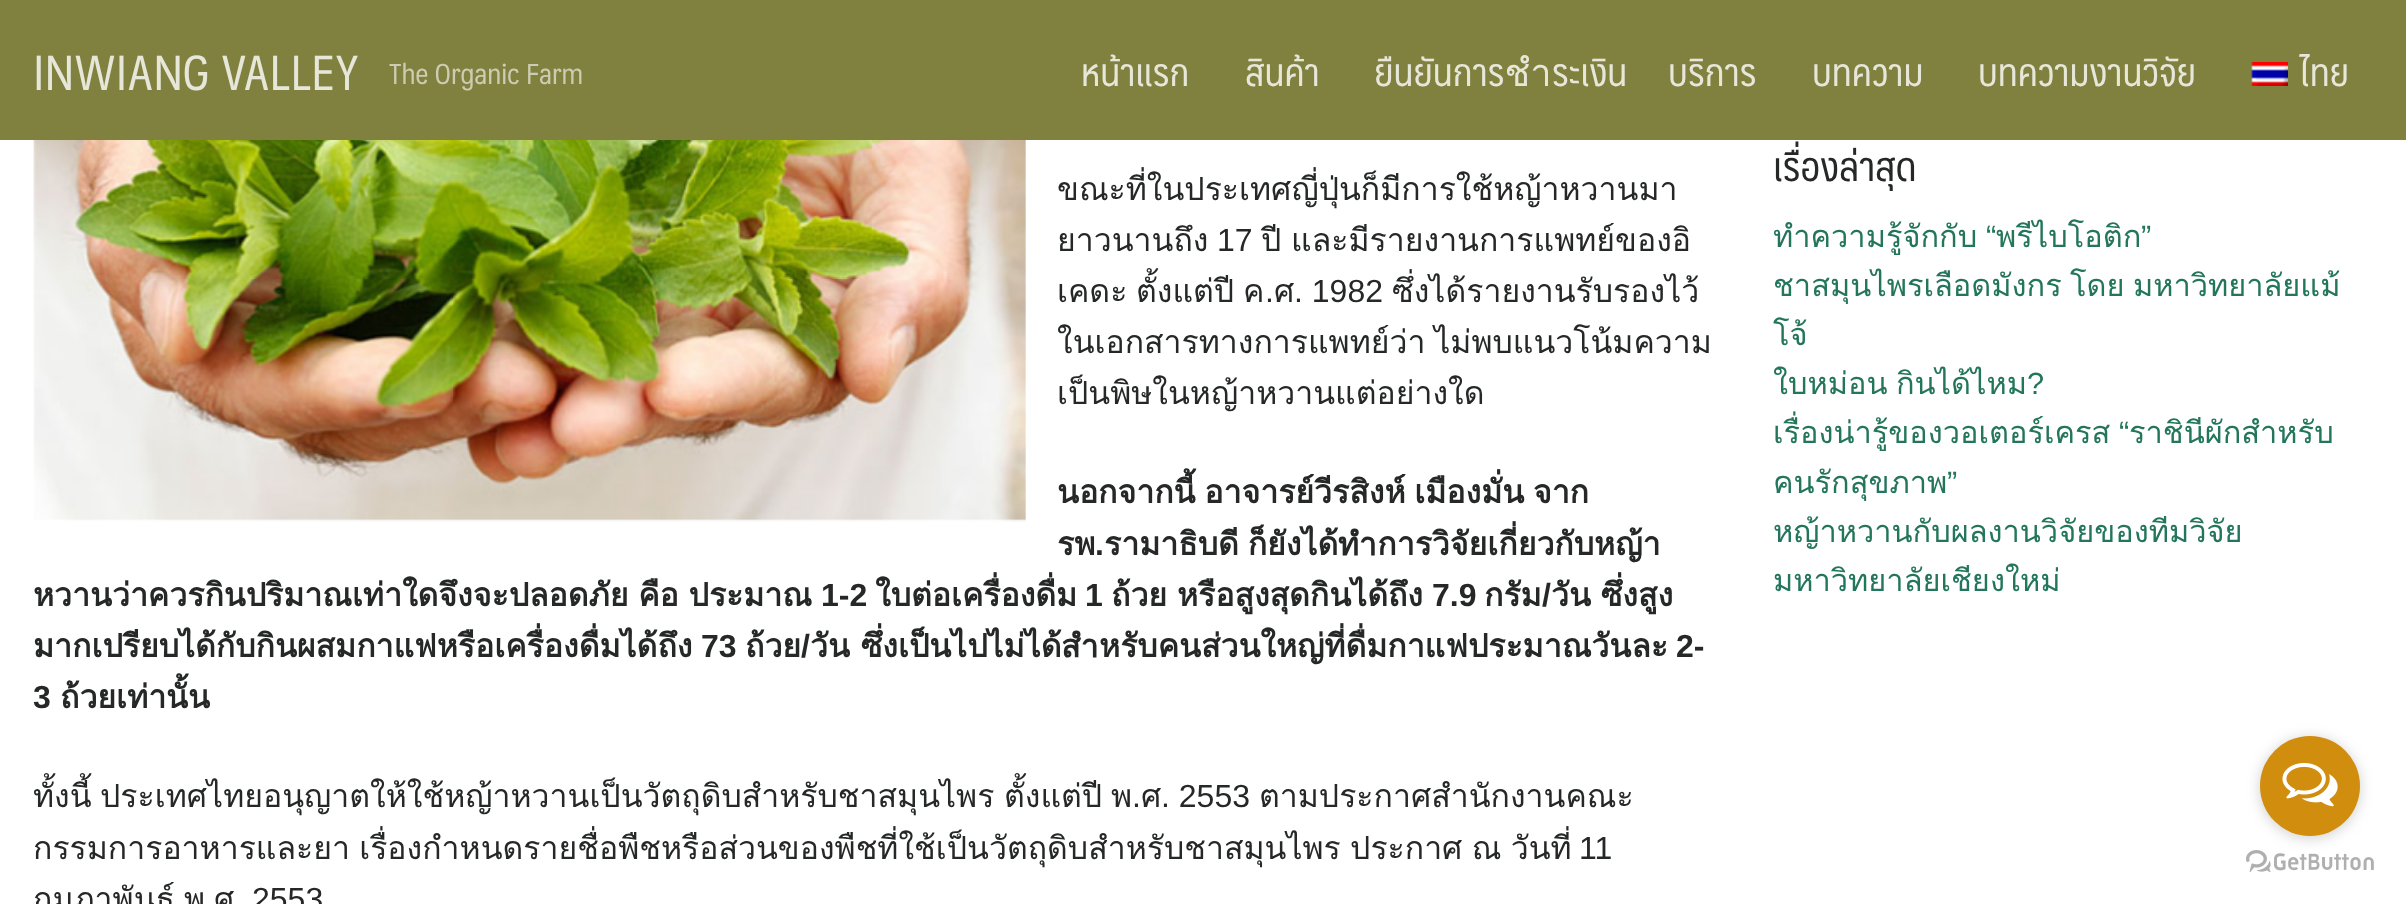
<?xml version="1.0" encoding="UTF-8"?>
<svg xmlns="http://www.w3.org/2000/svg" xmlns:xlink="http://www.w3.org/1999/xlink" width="2406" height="904">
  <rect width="100%" height="100%" fill="#ffffff" />
  <rect width="2406" height="140" fill="#80803f" />
  <image x="2251" y="62" width="37" height="24" xlink:href="image1.png" />
  <image x="33" y="140" width="993" height="382" xlink:href="image2.png" />
  <image x="2246" y="850" width="128" height="22" xlink:href="image4.png" />
  <rect x="2260" y="738" width="100" height="100" rx="50" fill="#888888" fill-opacity="0.4" filter="blur(7px)" />
  <circle cx="2310" cy="786" r="50" fill="#d18d0d" />
  <image x="2282" y="763" width="56" height="44" xlink:href="image3.png" />
  <text x="33" y="90" style="font-family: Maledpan; font-size: 48px; fill: #e6e6d9">INWIANG VALLEY</text>
  <text x="389" y="84" style="font-family: Maledpan; font-size: 28px; fill: #ccccb2">The Organic Farm</text>
  <text x="1081" y="86" style="font-family: Maledpan; font-size: 38px; fill: #e6e6d9">หน้าแรก</text>
  <text x="1245" y="86" style="font-family: Maledpan; font-size: 38px; fill: #e6e6d9">สินค้า</text>
  <text x="1374" y="86" style="font-family: Maledpan; font-size: 38px; fill: #e6e6d9">ยืนยันการชำระเงิน</text>
  <text x="1668" y="86" style="font-family: Maledpan; font-size: 38px; fill: #e6e6d9">บริการ</text>
  <text x="1812" y="86" style="font-family: Maledpan; font-size: 38px; fill: #e6e6d9">บทความ</text>
  <text x="1978" y="86" style="font-family: Maledpan; font-size: 38px; fill: #e6e6d9">บทความงานวิจัย</text>
  <text x="2299" y="86" style="font-family: Maledpan; font-size: 38px; fill: #e6e6d9">ไทย</text>
  <text x="1057" y="200" style="font-family: Loma; font-size: 32px; fill: #262828">ขณะที่ในประเทศญี่ปุ่นก็มีการใช้หญ้าหวานมา</text>
  <text x="1057" y="251" style="font-family: Loma; font-size: 32px; fill: #262828">ยาวนานถึง</text>
  <text x="1217" y="251" style="font-family: Liberation Sans; font-size: 32px; fill: #262828">17</text>
  <text x="1261" y="251" word-spacing="-1" style="font-family: Loma; font-size: 32px; fill: #262828">ปี และมีรายงานการแพทย์ของอิ</text>
  <text x="1057" y="302" style="font-family: Loma; font-size: 32px; fill: #262828">เคดะ</text>
  <text x="1136" y="302" style="font-family: Loma; font-size: 32px; fill: #262828">ตั้งแต่ปี</text>
  <text x="1243" y="302" style="font-family: Loma; font-size: 32px; fill: #262828">ค</text>
  <text x="1265" y="302" style="font-family: Liberation Sans; font-size: 32px; fill: #262828">.</text>
  <text x="1274" y="302" style="font-family: Loma; font-size: 32px; fill: #262828">ศ</text>
  <text x="1294" y="302" style="font-family: Liberation Sans; font-size: 32px; fill: #262828">. 1982</text>
  <text x="1392" y="302" style="font-family: Loma; font-size: 32px; fill: #262828">ซึ่งได้รายงานรับรองไว้</text>
  <text x="1057" y="353" word-spacing="-2" style="font-family: Loma; font-size: 32px; fill: #262828">ในเอกสารทางการแพทย์ว่า ไม่พบแนวโน้มความ</text>
  <text x="1057" y="404" style="font-family: Loma; font-size: 32px; fill: #262828">เป็นพิษในหญ้าหวานแต่อย่างใด</text>
  <text x="1057" y="503" word-spacing="-2" style="font-family: Loma; font-size: 32px; font-weight: bold; fill: #262828">นอกจากนี้ อาจารย์วีรสิงห์ เมืองมั่น จาก</text>
  <text x="1057" y="555" style="font-family: Loma; font-size: 32px; font-weight: bold; fill: #262828">รพ</text>
  <text x="1095" y="555" style="font-family: Liberation Sans; font-size: 32px; font-weight: bold; fill: #262828">.</text>
  <text x="1104" y="555" word-spacing="-2" style="font-family: Loma; font-size: 32px; font-weight: bold; fill: #262828">รามาธิบดี ก็ยังได้ทำการวิจัยเกี่ยวกับหญ้า</text>
  <text x="33" y="606" word-spacing="-1" style="font-family: Loma; font-size: 32px; font-weight: bold; fill: #262828">หวานว่าควรกินปริมาณเท่าใดจึงจะปลอดภัย คือ ประมาณ</text>
  <text x="875" y="606" style="font-family: Loma; font-size: 32px; font-weight: bold; fill: #262828">ใบต่อเครื่องดื่ม</text>
  <text x="1484" y="606" style="font-family: Loma; font-size: 32px; font-weight: bold; fill: #262828">กรัม</text>
  <text x="821" y="606" style="font-family: Liberation Sans; font-size: 32px; font-weight: bold; fill: #262828">1-2</text>
  <text x="1085" y="606" style="font-family: Liberation Sans; font-size: 32px; font-weight: bold; fill: #262828">1</text>
  <text x="1111" y="606" word-spacing="-1" style="font-family: Loma; font-size: 32px; font-weight: bold; fill: #262828">ถ้วย หรือสูงสุดกินได้ถึง</text>
  <text x="1432" y="606" style="font-family: Liberation Sans; font-size: 32px; font-weight: bold; fill: #262828">7.9</text>
  <text x="1542" y="606" style="font-family: Liberation Sans; font-size: 32px; font-weight: bold; fill: #262828">/</text>
  <text x="1551" y="606" word-spacing="-1" style="font-family: Loma; font-size: 32px; font-weight: bold; fill: #262828">วัน ซึ่งสูง</text>
  <text x="33" y="657" style="font-family: Loma; font-size: 32px; font-weight: bold; fill: #262828">มากเปรียบได้กับกินผสมกาแฟหรือเครื่องดื่มได้ถึง</text>
  <text x="701" y="657" style="font-family: Liberation Sans; font-size: 32px; font-weight: bold; fill: #262828">73</text>
  <text x="745" y="657" style="font-family: Loma; font-size: 32px; font-weight: bold; fill: #262828">ถ้วย</text>
  <text x="801" y="657" style="font-family: Liberation Sans; font-size: 32px; font-weight: bold; fill: #262828">/</text>
  <text x="810" y="657" style="font-family: Loma; font-size: 32px; font-weight: bold; fill: #262828">วัน ซึ่งเป็นไปไม่ได้สำหรับคนส่วนใหญ่ที่ดื่มกาแฟประมาณวันละ</text>
  <text x="1676" y="657" style="font-family: Liberation Sans; font-size: 32px; font-weight: bold; fill: #262828">2-</text>
  <text x="33" y="708" style="font-family: Liberation Sans; font-size: 32px; font-weight: bold; fill: #262828">3</text>
  <text x="60" y="708" style="font-family: Loma; font-size: 32px; font-weight: bold; fill: #262828">ถ้วยเท่านั้น</text>
  <text x="33" y="807" style="font-family: Loma; font-size: 32px; fill: #262828">ทั้งนี้</text>
  <text x="100" y="807" style="font-family: Loma; font-size: 32px; fill: #262828">ประเทศไทยอนุญาตให้ใช้หญ้าหวานเป็นวัตถุดิบสำหรับชาสมุนไพร</text>
  <text x="1004" y="807" style="font-family: Loma; font-size: 32px; fill: #262828">ตั้งแต่ปี</text>
  <text x="1111" y="807" style="font-family: Loma; font-size: 32px; fill: #262828">พ</text>
  <text x="1132" y="807" style="font-family: Liberation Sans; font-size: 32px; fill: #262828">.</text>
  <text x="1141" y="807" style="font-family: Loma; font-size: 32px; fill: #262828">ศ</text>
  <text x="1161" y="807" style="font-family: Liberation Sans; font-size: 32px; fill: #262828">. 2553</text>
  <text x="1259" y="807" style="font-family: Loma; font-size: 32px; fill: #262828">ตามประกาศสำนักงานคณะ</text>
  <text x="33" y="859" word-spacing="-1.5" style="font-family: Loma; font-size: 32px; fill: #262828">กรรมการอาหารและยา เรื่องกำหนดรายชื่อพืชหรือส่วนของพืชที่ใช้เป็นวัตถุดิบสำหรับชาสมุนไพร ประกาศ ณ วันที่</text>
  <text x="1579" y="859" style="font-family: Liberation Sans; font-size: 32px; fill: #262828">11</text>
  <text x="33" y="910" style="font-family: Loma; font-size: 32px; fill: #262828">กุมภาพันธ์</text>
  <text x="184" y="910" style="font-family: Loma; font-size: 32px; fill: #262828">พ</text>
  <text x="214" y="910" style="font-family: Loma; font-size: 32px; fill: #262828">ศ</text>
  <text x="252" y="910" style="font-family: Liberation Sans; font-size: 32px; fill: #262828">2553</text>
  <text x="1773" y="181" style="font-family: Maledpan; font-size: 40px; fill: #262828">เรื่องล่าสุด</text>
  <text x="1773" y="247" style="font-family: Loma; font-size: 30.75px; fill: #23755b">ทำความรู้จักกับ</text>
  <text x="1986" y="247" style="font-family: Liberation Sans; font-size: 30.75px; fill: #23755b">“</text>
  <text x="1996" y="247" style="font-family: Loma; font-size: 30.75px; fill: #23755b">พรีไบโอติก</text>
  <text x="2141" y="247" style="font-family: Liberation Sans; font-size: 30.75px; fill: #23755b">”</text>
  <text x="1773" y="296" word-spacing="-2" style="font-family: Loma; font-size: 30.75px; fill: #23755b">ชาสมุนไพรเลือดมังกร โดย มหาวิทยาลัยแม้</text>
  <text x="1773" y="345" style="font-family: Loma; font-size: 30.75px; fill: #23755b">โจ้</text>
  <text x="1773" y="394" word-spacing="-2" style="font-family: Loma; font-size: 30.75px; fill: #23755b">ใบหม่อน กินได้ไหม</text>
  <text x="2027" y="394" style="font-family: Liberation Sans; font-size: 30.75px; fill: #23755b">?</text>
  <text x="1773" y="443" style="font-family: Loma; font-size: 30.75px; fill: #23755b">เรื่องน่ารู้ของวอเตอร์เครส</text>
  <text x="2119" y="443" style="font-family: Liberation Sans; font-size: 30.75px; fill: #23755b">“</text>
  <text x="2129" y="443" style="font-family: Loma; font-size: 30.75px; fill: #23755b">ราชินีผักสำหรับ</text>
  <text x="1773" y="493" style="font-family: Loma; font-size: 30.75px; fill: #23755b">คนรักสุขภาพ</text>
  <text x="1947" y="493" style="font-family: Liberation Sans; font-size: 30.75px; fill: #23755b">”</text>
  <text x="1773" y="542" style="font-family: Loma; font-size: 30.75px; fill: #23755b">หญ้าหวานกับผลงานวิจัยของทีมวิจัย</text>
  <text x="1773" y="591" style="font-family: Loma; font-size: 30.75px; fill: #23755b">มหาวิทยาลัยเชียงใหม่</text>
</svg>
